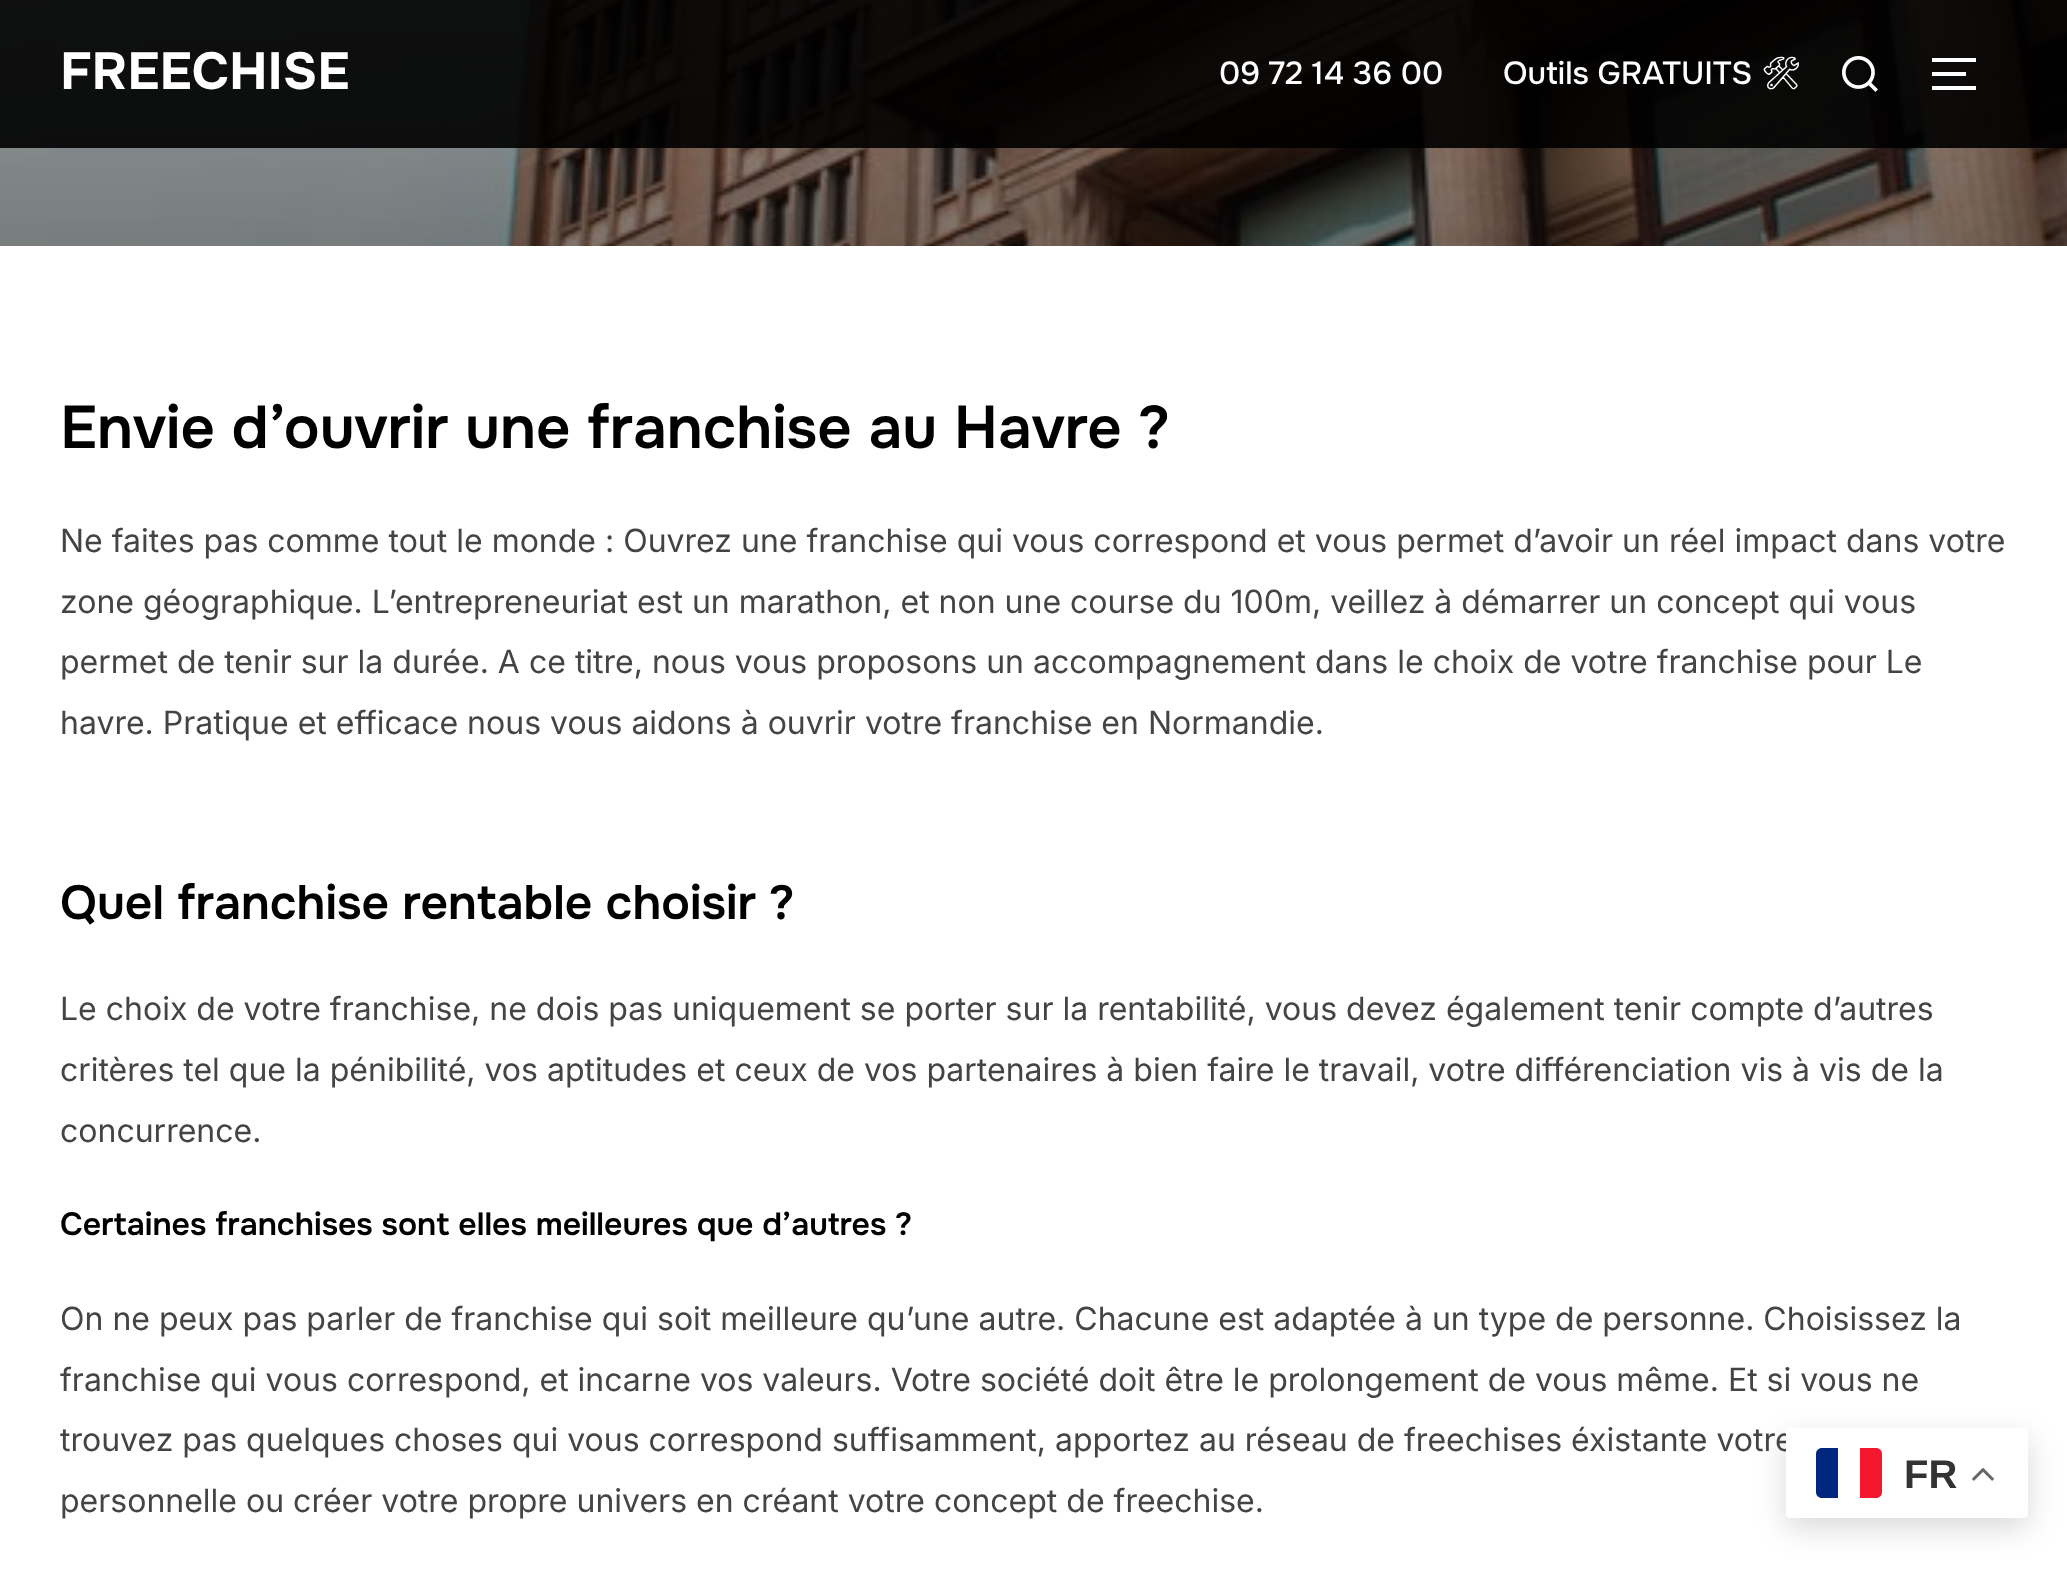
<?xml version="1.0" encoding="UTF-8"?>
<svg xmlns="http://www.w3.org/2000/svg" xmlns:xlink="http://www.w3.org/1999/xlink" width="2067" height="1575">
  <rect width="100%" height="100%" fill="#ffffff" />
  <image x="0" y="0" width="2067" height="246" xlink:href="image2.png" />
  <rect width="2067" height="148" fill="#000000" fill-opacity="0.9" />
  <image x="1842" y="56" width="36" height="36" xlink:href="image1.png" />
  <rect x="1932" y="58" width="44" height="4" fill="#ffffff" />
  <rect x="1932" y="72" width="34" height="4" fill="#ffffff" />
  <rect x="1932" y="86" width="44" height="4" fill="#ffffff" />
  <rect x="1786" y="1438" width="242" height="90" rx="4" fill="#000000" fill-opacity="0.15" filter="blur(15px)" />
  <text x="60" y="89" style="font-family: Onest; font-size: 52px; font-weight: bold; fill: #ffffff">FREECHISE</text>
  <text x="1219" y="84" style="font-family: Onest; font-size: 32px; font-weight: 500; fill: #ffffff">09 72 14 36 00</text>
  <text x="1503" y="84" style="font-family: Onest; font-size: 32px; font-weight: 500; fill: #ffffff">Outils GRATUITS</text>
  <text x="1761" y="84" style="font-family: Noto Emoji; font-size: 32px; font-weight: 500; fill: #ffffff">🛠</text>
  <text x="60" y="448" style="font-family: Onest; font-size: 60px; font-weight: 600; fill: #000000">Envie d’ouvrir une franchise au Havre ?</text>
  <text x="60" y="552" style="font-family: Inter; font-size: 32px; fill: #444444">Ne faites pas comme tout le monde : Ouvrez une franchise qui vous correspond et vous permet d’avoir un réel impact dans votre</text>
  <text x="60" y="613" style="font-family: Inter; font-size: 32px; fill: #444444">zone géographique. L’entrepreneuriat est un marathon, et non une course du 100m, veillez à démarrer un concept qui vous</text>
  <text x="60" y="673" style="font-family: Inter; font-size: 32px; fill: #444444">permet de tenir sur la durée. A ce titre, nous vous proposons un accompagnement dans le choix de votre franchise pour Le</text>
  <text x="60" y="734" style="font-family: Inter; font-size: 32px; fill: #444444">havre. Pratique et efficace nous vous aidons à ouvrir votre franchise en Normandie.</text>
  <text x="60" y="919" style="font-family: Onest; font-size: 48px; font-weight: 600; fill: #000000">Quel franchise rentable choisir ?</text>
  <text x="60" y="1020" style="font-family: Inter; font-size: 32px; fill: #444444">Le choix de votre franchise, ne dois pas uniquement se porter sur la rentabilité, vous devez également tenir compte d’autres</text>
  <text x="60" y="1081" style="font-family: Inter; font-size: 32px; fill: #444444">critères tel que la pénibilité, vos aptitudes et ceux de vos partenaires à bien faire le travail, votre différenciation vis à vis de la</text>
  <text x="60" y="1142" style="font-family: Inter; font-size: 32px; fill: #444444">concurrence.</text>
  <text x="60" y="1235" style="font-family: Onest; font-size: 32px; font-weight: 600; fill: #000000">Certaines franchises sont elles meilleures que d’autres ?</text>
  <text x="60" y="1330" style="font-family: Inter; font-size: 32px; fill: #444444">On ne peux pas parler de franchise qui soit meilleure qu’une autre. Chacune est adaptée à un type de personne. Choisissez la</text>
  <text x="60" y="1391" style="font-family: Inter; font-size: 32px; fill: #444444">franchise qui vous correspond, et incarne vos valeurs. Votre société doit être le prolongement de vous même. Et si vous ne</text>
  <text x="60" y="1451" style="font-family: Inter; font-size: 32px; fill: #444444">trouvez pas quelques choses qui vous correspond suffisamment, apportez au réseau de freechises éxistante votre</text>
  <text x="60" y="1512" style="font-family: Inter; font-size: 32px; fill: #444444">personnelle ou créer votre propre univers en créant votre concept de freechise.</text>
  <rect x="1786" y="1428" width="242" height="90" rx="4" fill="#ffffff" />
  <path d="M 1822 1448 h 16 v 50 h -16 c -3.5 0 -6 -2.5 -6 -6 v -38 c 0 -3.5 2.5 -6 6 -6 z" fill="#00267f" />
  <path d="M 1860 1448 h 16 c 3.5 0 6 2.5 6 6 v 38 c 0 3.5 -2.5 6 -6 6 h -16 z" fill="#f31830" />
  <text x="1904" y="1488" style="font-family: Liberation Sans; font-size: 40px; font-weight: bold; fill: #333333">FR</text>
  <image x="1972" y="1468" width="22" height="13" xlink:href="image3.png" />
</svg>
